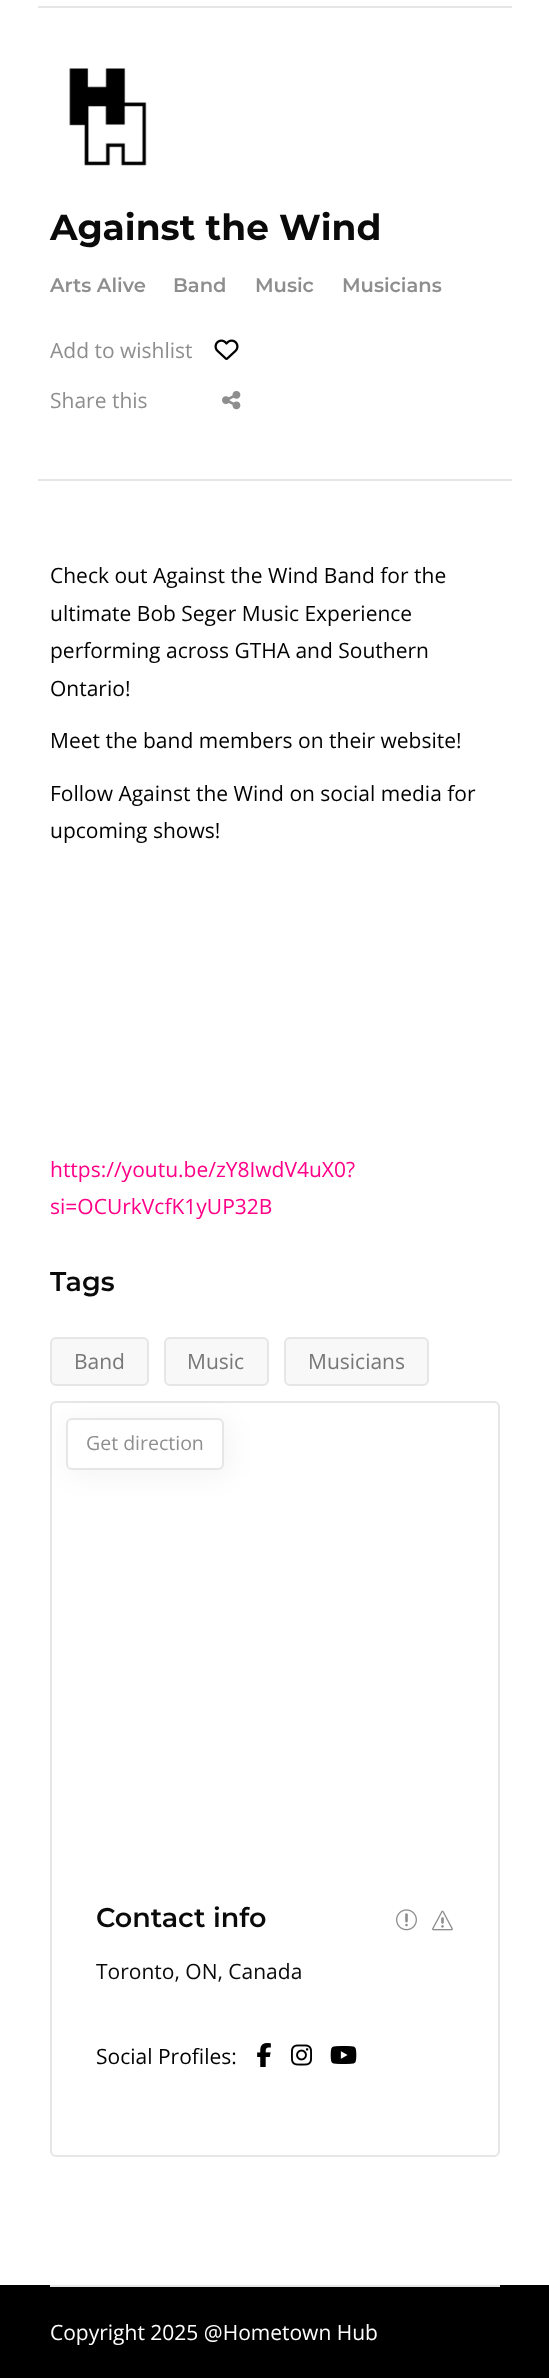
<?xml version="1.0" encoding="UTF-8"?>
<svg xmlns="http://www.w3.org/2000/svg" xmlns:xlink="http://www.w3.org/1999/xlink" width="549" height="2378">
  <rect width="100%" height="100%" fill="#ffffff" />
  <rect x="38" y="6" width="474" height="2" fill="#e6e6e6" />
  <rect x="38" y="479" width="474" height="2" fill="#e6e6e6" />
  <image x="69" y="68" width="78" height="98" xlink:href="image1.png" />
  <image x="214" y="339" width="25" height="21" xlink:href="image2.png" />
  <image x="222" y="391" width="19" height="19" xlink:href="image3.png" />
  <rect x="51" y="1338" width="97" height="47" rx="5" fill="#f8f8f8" stroke="#e6e6e6" stroke-width="2" />
  <rect x="165" y="1338" width="103" height="47" rx="5" fill="#f8f8f8" stroke="#e6e6e6" stroke-width="2" />
  <rect x="285" y="1338" width="143" height="47" rx="5" fill="#f8f8f8" stroke="#e6e6e6" stroke-width="2" />
  <rect x="51" y="1402" width="448" height="754" rx="5" fill="none" stroke="#e6e6e6" stroke-width="2" />
  <rect x="68" y="1419" width="163" height="59" rx="9" fill="#000000" fill-opacity="0.04" filter="blur(12px)" />
  <rect x="67" y="1419" width="156" height="50" rx="5" fill="#ffffff" stroke="#e6e6e6" stroke-width="2" />
  <image x="396" y="1909" width="21" height="22" xlink:href="image4.png" />
  <image x="432" y="1910" width="21" height="21" xlink:href="image5.png" />
  <image x="257" y="2043" width="14" height="24" xlink:href="image6.png" />
  <image x="291" y="2044" width="21" height="22" xlink:href="image7.png" />
  <image x="330" y="2046" width="27" height="18" xlink:href="image8.png" />
  <rect y="2285" width="549" height="93" fill="#000000" />
  <rect x="50" y="2285" width="450" height="2" fill="#e6e6e6" />
  <text x="50" y="240" style="font-family: Montserrat; font-size: 36px; font-weight: bold; fill: #0a0a0a">Against the Wind</text>
  <text x="50" y="292" style="font-family: Montserrat; font-size: 19.5px; font-weight: 600; fill: #8e8e8e">Arts Alive</text>
  <text x="173" y="292" style="font-family: Montserrat; font-size: 19.5px; font-weight: 600; fill: #8e8e8e">Band</text>
  <text x="255" y="292" style="font-family: Montserrat; font-size: 19.5px; font-weight: 600; fill: #8e8e8e">Music</text>
  <text x="342" y="292" style="font-family: Montserrat; font-size: 19.5px; font-weight: 600; fill: #8e8e8e">Musicians</text>
  <text x="50" y="358" style="font-family: Open Sans; font-size: 21px; fill: #8e8e8e">Add to wishlist</text>
  <text x="50" y="408" style="font-family: Open Sans; font-size: 21px; fill: #8e8e8e">Share this</text>
  <text x="50" y="583" style="font-family: Open Sans; font-size: 21px; fill: #000000">Check out Against the Wind Band for the</text>
  <text x="50" y="621" style="font-family: Open Sans; font-size: 21px; fill: #000000">ultimate Bob Seger Music Experience</text>
  <text x="50" y="658" style="font-family: Open Sans; font-size: 21px; fill: #000000">performing across GTHA and Southern</text>
  <text x="50" y="696" style="font-family: Open Sans; font-size: 21px; fill: #000000">Ontario!</text>
  <text x="50" y="748" style="font-family: Open Sans; font-size: 21px; fill: #000000">Meet the band members on their website!</text>
  <text x="50" y="801" style="font-family: Open Sans; font-size: 21px; fill: #000000">Follow Against the Wind on social media for</text>
  <text x="50" y="838" style="font-family: Open Sans; font-size: 21px; fill: #000000">upcoming shows!</text>
  <text x="50" y="1177" style="font-family: Open Sans; font-size: 21px; fill: #ff0088">https://youtu.be/zY8IwdV4uX0?</text>
  <text x="50" y="1214" style="font-family: Open Sans; font-size: 21px; fill: #ff0088">si=OCUrkVcfK1yUP32B</text>
  <text x="50" y="1291" style="font-family: Montserrat; font-size: 27px; font-weight: 600; fill: #0a0a0a">Tags</text>
  <text x="74" y="1369" style="font-family: Open Sans; font-size: 21px; fill: #777777">Band</text>
  <text x="187" y="1369" style="font-family: Open Sans; font-size: 21px; fill: #777777">Music</text>
  <text x="308" y="1369" style="font-family: Open Sans; font-size: 21px; fill: #777777">Musicians</text>
  <text x="86" y="1450" style="font-family: Open Sans; font-size: 19.5px; fill: #8e8e8e">Get direction</text>
  <text x="96" y="1927" style="font-family: Montserrat; font-size: 27px; font-weight: 600; fill: #0a0a0a">Contact info</text>
  <text x="96" y="1979" style="font-family: Open Sans; font-size: 21px; fill: #0a0a0a">Toronto, ON, Canada</text>
  <text x="96" y="2064" style="font-family: Open Sans; font-size: 21px; fill: #000000">Social Profiles:</text>
  <text x="50" y="2340" style="font-family: Open Sans; font-size: 21px; fill: #ffffff">Copyright 2025 @Hometown Hub</text>
</svg>
